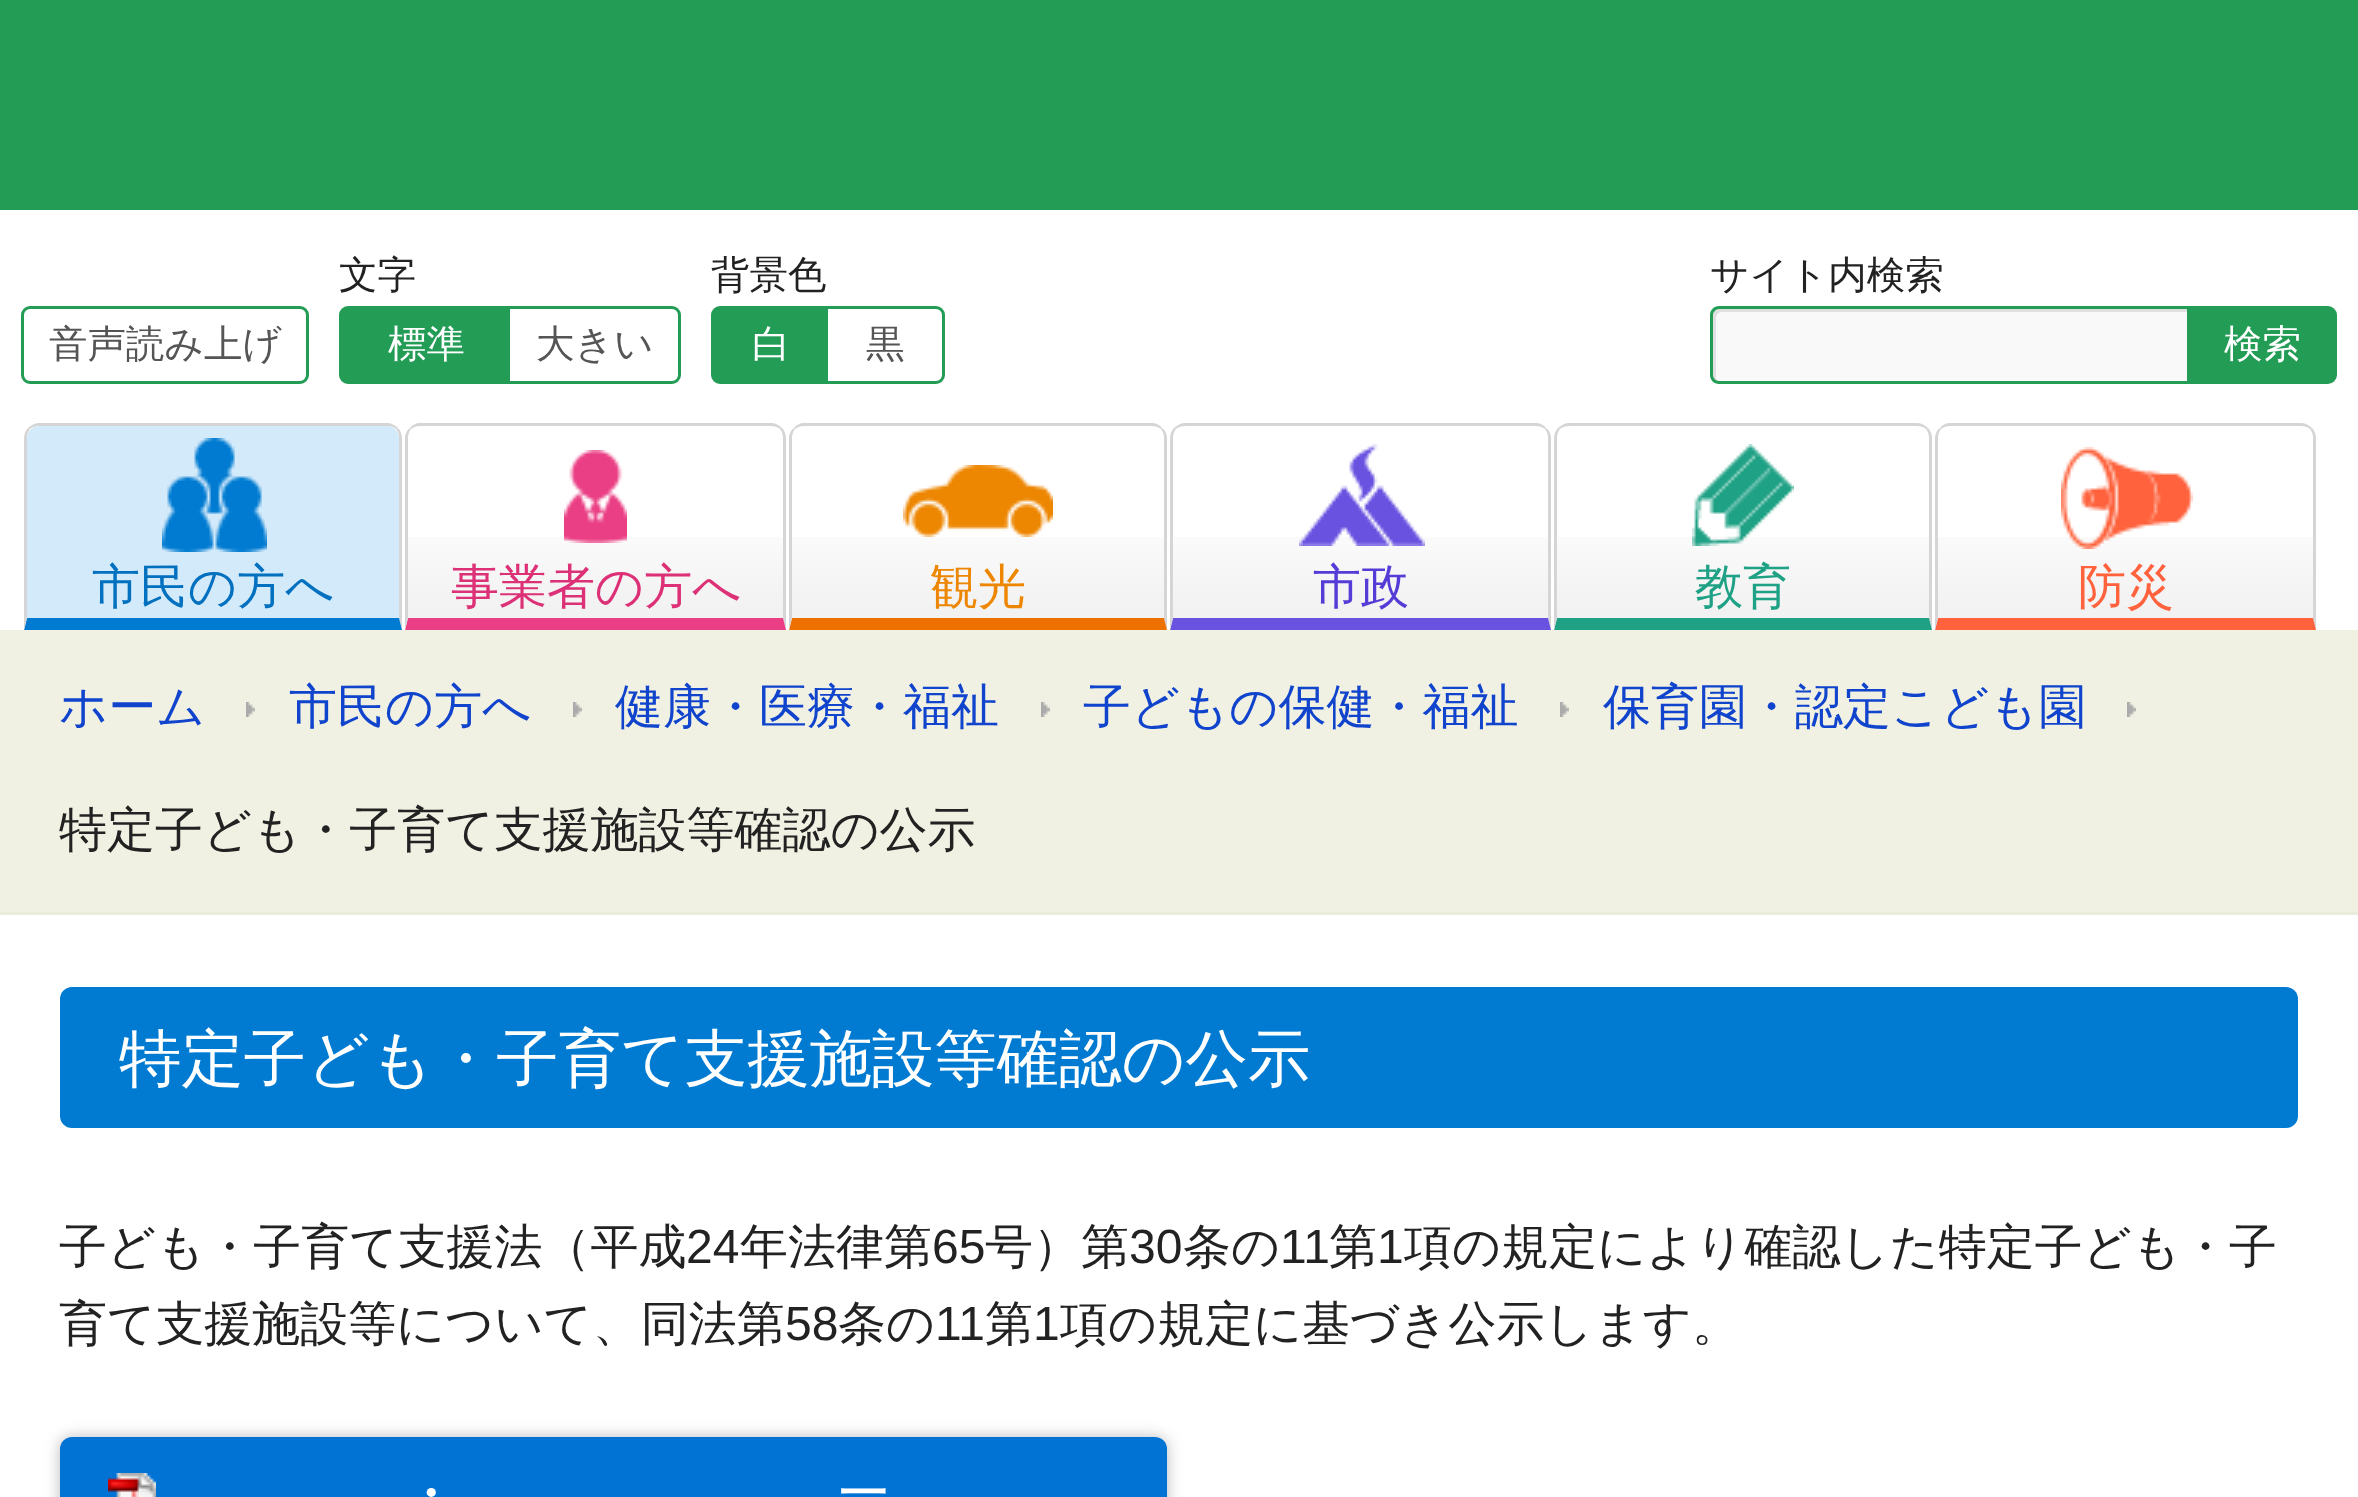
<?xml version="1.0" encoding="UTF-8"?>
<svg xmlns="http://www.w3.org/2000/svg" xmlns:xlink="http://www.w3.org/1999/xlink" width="2358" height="1497">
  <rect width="100%" height="100%" fill="#ffffff" />
  <rect width="2358" height="210" fill="#239d55" />
  <rect x="22.5" y="307.5" width="285" height="75" rx="7.5" fill="none" stroke="#239d55" stroke-width="3" />
  <rect x="340.5" y="307.5" width="339" height="75" rx="7.5" fill="none" stroke="#239d55" stroke-width="3" />
  <rect x="342" y="309" width="168" height="72" fill="#239d55" />
  <rect x="712.5" y="307.5" width="231" height="75" rx="7.5" fill="none" stroke="#239d55" stroke-width="3" />
  <rect x="714" y="309" width="114" height="72" fill="#239d55" />
  <path d="M 1719 306 h 468 v 78 h -468 c -5 0 -9 -4 -9 -9 v -60 c 0 -5 4 -9 9 -9 z" fill="#f9f9f9" />
  <path d="M 1722 312 h 465 v -3 h -468 c -3 0 -6 3 -6 6 v 60 c 0 2 2 5 4 6 l -1 -3 v -60 c 0 -3 3 -6 6 -6 z" fill="#e0e0e0" />
  <path d="M 1719 306 h 468 v 78 h -468 c -5 0 -9 -4 -9 -9 v -60 c 0 -5 4 -9 9 -9 z m 0 3 h 468 v 72 h -468 c -3 0 -6 -3 -6 -6 v -60 c 0 -3 3 -6 6 -6 z" fill="#239d55" fill-rule="evenodd" />
  <path d="M 2188.5 307.5 h 139.5 c 4 0 7.5 3.5 7.5 7.5 v 60 c 0 4 -3.5 7.5 -7.5 7.5 h -139.5 z" fill="#239d55" stroke="#239d55" stroke-width="3" />
  <path d="M 39 423 c -4 0 -8 2 -11 5 l 2 1 c 2 -2 6 -3 9 -3 h 348 c 3 0 7 1 9 3 l 2 -1 c -3 -3 -7 -5 -11 -5 z" fill="#d5d5d5" />
  <path d="M 402 630 v -192 c 0 -4 -2 -8 -4 -10 l -2 1 c 2 3 3 5 3 9 v 180 z" fill="#d5d5d5" />
  <path d="M 402 630 l -3 -12 h -372 l -3 12 z" fill="#007bd1" />
  <path d="M 24 630 l 3 -12 v -180 c 0 -4 1 -6 3 -9 l -2 -1 c -2 2 -4 6 -4 10 z" fill="#d5d5d5" />
  <path d="M 39 426 h 348 c 6.5 0 12 5.5 12 12 v 180 h -372 v -180 c 0 -6.5 5.5 -12 12 -12 z" fill="#d3eafa" />
  <image x="162" y="438" width="105" height="114" xlink:href="image1.png" />
  <path d="M 420 423 c -4 0 -8 2 -10 5 l 1 1 c 3 -2 5 -3 9 -3 h 351 c 3 0 7 1 9 3 l 2 -1 c -3 -3 -7 -5 -11 -5 z" fill="#d5d5d5" />
  <path d="M 786 630 v -192 c 0 -4 -2 -8 -4 -10 l -2 1 c 2 3 3 5 3 9 v 180 z" fill="#d5d5d5" />
  <path d="M 786 630 l -3 -12 h -375 l -3 12 z" fill="#ea3f84" />
  <path d="M 405 630 l 3 -12 v -180 c 0 -4 1 -6 3 -9 l -1 -1 c -3 2 -5 6 -5 10 z" fill="#d5d5d5" />
  <image x="408" y="537" width="375" height="81" xlink:href="image2.png" />
  <image x="564" y="450" width="63" height="93" xlink:href="image3.png" />
  <path d="M 804 423 c -4 0 -8 2 -10 5 l 1 1 c 3 -2 5 -3 9 -3 h 348 c 4 0 6 1 9 3 l 1 -1 c -2 -3 -6 -5 -10 -5 z" fill="#d5d5d5" />
  <path d="M 1167 630 v -192 c 0 -4 -2 -8 -5 -10 l -1 1 c 2 3 3 5 3 9 v 180 z" fill="#d5d5d5" />
  <path d="M 1167 630 l -3 -12 h -372 l -3 12 z" fill="#ed7000" />
  <path d="M 789 630 l 3 -12 v -180 c 0 -4 1 -6 3 -9 l -1 -1 c -3 2 -5 6 -5 10 z" fill="#d5d5d5" />
  <image x="792" y="537" width="372" height="81" xlink:href="image4.png" />
  <image x="903" y="465" width="150" height="72" xlink:href="image5.png" />
  <path d="M 1185 423 c -4 0 -8 2 -11 5 l 2 1 c 2 -2 6 -3 9 -3 h 351 c 4 0 6 1 9 3 l 1 -1 c -2 -3 -6 -5 -10 -5 z" fill="#d5d5d5" />
  <path d="M 1551 630 v -192 c 0 -4 -2 -8 -5 -10 l -1 1 c 2 3 3 5 3 9 v 180 z" fill="#d5d5d5" />
  <path d="M 1551 630 l -3 -12 h -375 l -3 12 z" fill="#6952e0" />
  <path d="M 1170 630 l 3 -12 v -180 c 0 -4 1 -6 3 -9 l -2 -1 c -2 2 -4 6 -4 10 z" fill="#d5d5d5" />
  <image x="1173" y="537" width="375" height="81" xlink:href="image2.png" />
  <image x="1299" y="444" width="126" height="102" xlink:href="image6.png" />
  <path d="M 1569 423 c -4 0 -8 2 -11 5 l 2 1 c 2 -2 6 -3 9 -3 h 348 c 3 0 7 1 9 3 l 2 -1 c -3 -3 -7 -5 -11 -5 z" fill="#d5d5d5" />
  <path d="M 1932 630 v -192 c 0 -4 -2 -8 -4 -10 l -2 1 c 2 3 3 5 3 9 v 180 z" fill="#d5d5d5" />
  <path d="M 1932 630 l -3 -12 h -372 l -3 12 z" fill="#1ea184" />
  <path d="M 1554 630 l 3 -12 v -180 c 0 -4 1 -6 3 -9 l -2 -1 c -2 2 -4 6 -4 10 z" fill="#d5d5d5" />
  <image x="1557" y="537" width="372" height="81" xlink:href="image4.png" />
  <image x="1692" y="444" width="102" height="102" xlink:href="image7.png" />
  <path d="M 1950 423 c -4 0 -8 2 -10 5 l 1 1 c 3 -2 5 -3 9 -3 h 351 c 3 0 7 1 9 3 l 2 -1 c -3 -3 -7 -5 -11 -5 z" fill="#d5d5d5" />
  <path d="M 2316 630 v -192 c 0 -4 -2 -8 -4 -10 l -2 1 c 2 3 3 5 3 9 v 180 z" fill="#d5d5d5" />
  <path d="M 2316 630 l -3 -12 h -375 l -3 12 z" fill="#ff623c" />
  <path d="M 1935 630 l 3 -12 v -180 c 0 -4 1 -6 3 -9 l -1 -1 c -3 2 -5 6 -5 10 z" fill="#d5d5d5" />
  <image x="1938" y="537" width="375" height="81" xlink:href="image2.png" />
  <image x="2061" y="447" width="132" height="102" xlink:href="image8.png" />
  <rect y="630" width="2358" height="282" fill="#f1f1e3" />
  <rect y="912" width="2358" height="3" fill="#eaeadd" />
  <image x="246" y="702" width="9" height="15" xlink:href="image9.png" />
  <image x="573" y="702" width="9" height="15" xlink:href="image10.png" />
  <image x="1041" y="702" width="9" height="15" xlink:href="image10.png" />
  <image x="1560" y="702" width="9" height="15" xlink:href="image9.png" />
  <image x="2127" y="702" width="9" height="15" xlink:href="image10.png" />
  <rect x="60" y="987" width="2238" height="141" rx="12" fill="#007bd1" />
  <rect x="60" y="1437" width="1107" height="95" rx="12" fill="#bbbbbb" filter="blur(7.5px)" />
  <rect x="60" y="1437" width="1107" height="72" rx="12" fill="#0073d4" />
  <image x="108" y="1473" width="48" height="24" xlink:href="image11.png" />
  <text x="49" y="357" style="font-family: WenQuanYi Zen Hei; font-size: 38.5px; font-weight: 500; fill: #555555">音声読み上げ</text>
  <text x="339" y="288" style="font-family: WenQuanYi Zen Hei; font-size: 38.5px; font-weight: 500; fill: #222222">文字</text>
  <text x="388" y="357" style="font-family: WenQuanYi Zen Hei; font-size: 38.5px; font-weight: 500; fill: #ffffff">標準</text>
  <text x="536" y="357" style="font-family: WenQuanYi Zen Hei; font-size: 38.5px; font-weight: 500; fill: #555555">大きい</text>
  <text x="711" y="288" style="font-family: WenQuanYi Zen Hei; font-size: 38.5px; font-weight: 500; fill: #222222">背景色</text>
  <text x="752" y="357" style="font-family: WenQuanYi Zen Hei; font-size: 38.5px; font-weight: 500; fill: #ffffff">白</text>
  <text x="866" y="357" style="font-family: WenQuanYi Zen Hei; font-size: 38.5px; font-weight: 500; fill: #555555">黒</text>
  <text x="1710" y="288" style="font-family: WenQuanYi Zen Hei; font-size: 38.5px; font-weight: 500; fill: #222222">サイト内検索</text>
  <text x="2224" y="357" style="font-family: WenQuanYi Zen Hei; font-size: 38.5px; font-weight: 500; fill: #ffffff">検索</text>
  <text x="92" y="603" style="font-family: WenQuanYi Zen Hei; font-size: 48px; font-weight: 500; fill: #0070bf">市民の方へ</text>
  <text x="451" y="603" style="font-family: WenQuanYi Zen Hei; font-size: 48px; font-weight: 500; fill: #dc3176">事業者の方へ</text>
  <text x="930" y="603" style="font-family: WenQuanYi Zen Hei; font-size: 48px; font-weight: 500; fill: #ed8600">観光</text>
  <text x="1313" y="603" style="font-family: WenQuanYi Zen Hei; font-size: 48px; font-weight: 500; fill: #553cd6">市政</text>
  <text x="1695" y="603" style="font-family: WenQuanYi Zen Hei; font-size: 48px; font-weight: 500; fill: #1ea184">教育</text>
  <text x="2078" y="603" style="font-family: WenQuanYi Zen Hei; font-size: 48px; font-weight: 500; fill: #ff623c">防災</text>
  <text x="59" y="723" style="font-family: WenQuanYi Zen Hei; font-size: 48px; font-weight: 500; fill: #1144cc">ホーム</text>
  <text x="289" y="723" style="font-family: WenQuanYi Zen Hei; font-size: 48px; font-weight: 500; fill: #1144cc">市民の方へ</text>
  <text x="615" y="723" style="font-family: WenQuanYi Zen Hei; font-size: 48px; font-weight: 500; fill: #1144cc">健康・医療・福祉</text>
  <text x="1083" y="723" style="font-family: WenQuanYi Zen Hei; font-size: 48px; font-weight: 500; fill: #1144cc">子どもの保健・福祉</text>
  <text x="1603" y="723" style="font-family: WenQuanYi Zen Hei; font-size: 48px; font-weight: 500; fill: #1144cc">保育園・認定こども園</text>
  <text x="59" y="846" style="font-family: WenQuanYi Zen Hei; font-size: 48px; font-weight: 500; fill: #222222">特定子ども・子育て支援施設等確認の公示</text>
  <text x="119" y="1080" style="font-family: WenQuanYi Zen Hei; font-size: 62.4px; font-weight: 500; fill: #ffffff">特定子ども・子育て支援施設等確認の公示</text>
  <text x="59" y="1263" style="font-family: WenQuanYi Zen Hei; font-size: 48px; font-weight: 500; fill: #222222">子ども・子育て支援法（平成</text>
  <text x="686" y="1263" style="font-family: Liberation Sans; font-size: 48px; fill: #222222">24</text>
  <text x="740" y="1263" style="font-family: WenQuanYi Zen Hei; font-size: 48px; font-weight: 500; fill: #222222">年法律第</text>
  <text x="932" y="1263" style="font-family: Liberation Sans; font-size: 48px; fill: #222222">65</text>
  <text x="985" y="1263" style="font-family: WenQuanYi Zen Hei; font-size: 48px; font-weight: 500; fill: #222222">号）第</text>
  <text x="1129" y="1263" style="font-family: Liberation Sans; font-size: 48px; fill: #222222">30</text>
  <text x="1183" y="1263" style="font-family: WenQuanYi Zen Hei; font-size: 48px; font-weight: 500; fill: #222222">条の</text>
  <text x="1280" y="1263" style="font-family: Liberation Sans; font-size: 48px; fill: #222222">11</text>
  <text x="1329" y="1263" style="font-family: WenQuanYi Zen Hei; font-size: 48px; font-weight: 500; fill: #222222">第</text>
  <text x="1377" y="1263" style="font-family: Liberation Sans; font-size: 48px; fill: #222222">1</text>
  <text x="1404" y="1263" style="font-family: WenQuanYi Zen Hei; font-size: 48px; font-weight: 500; fill: #222222">項の規定により確認した特定子ども・子</text>
  <text x="59" y="1340" style="font-family: WenQuanYi Zen Hei; font-size: 48px; font-weight: 500; fill: #222222">育て支援施設等について、同法第</text>
  <text x="785" y="1340" style="font-family: Liberation Sans; font-size: 48px; fill: #222222">58</text>
  <text x="838" y="1340" style="font-family: WenQuanYi Zen Hei; font-size: 48px; font-weight: 500; fill: #222222">条の</text>
  <text x="935" y="1340" style="font-family: Liberation Sans; font-size: 48px; fill: #222222">11</text>
  <text x="985" y="1340" style="font-family: WenQuanYi Zen Hei; font-size: 48px; font-weight: 500; fill: #222222">第</text>
  <text x="1033" y="1340" style="font-family: Liberation Sans; font-size: 48px; fill: #222222">1</text>
  <text x="1060" y="1340" style="font-family: WenQuanYi Zen Hei; font-size: 48px; font-weight: 500; fill: #222222">項の規定に基づき公示します。</text>
  <text x="406" y="1510" style="font-family: WenQuanYi Zen Hei; font-size: 48px; font-weight: bold; fill: #ffffff">・</text>
  <text x="839" y="1510" style="font-family: WenQuanYi Zen Hei; font-size: 48px; font-weight: bold; fill: #ffffff">一</text>
</svg>
